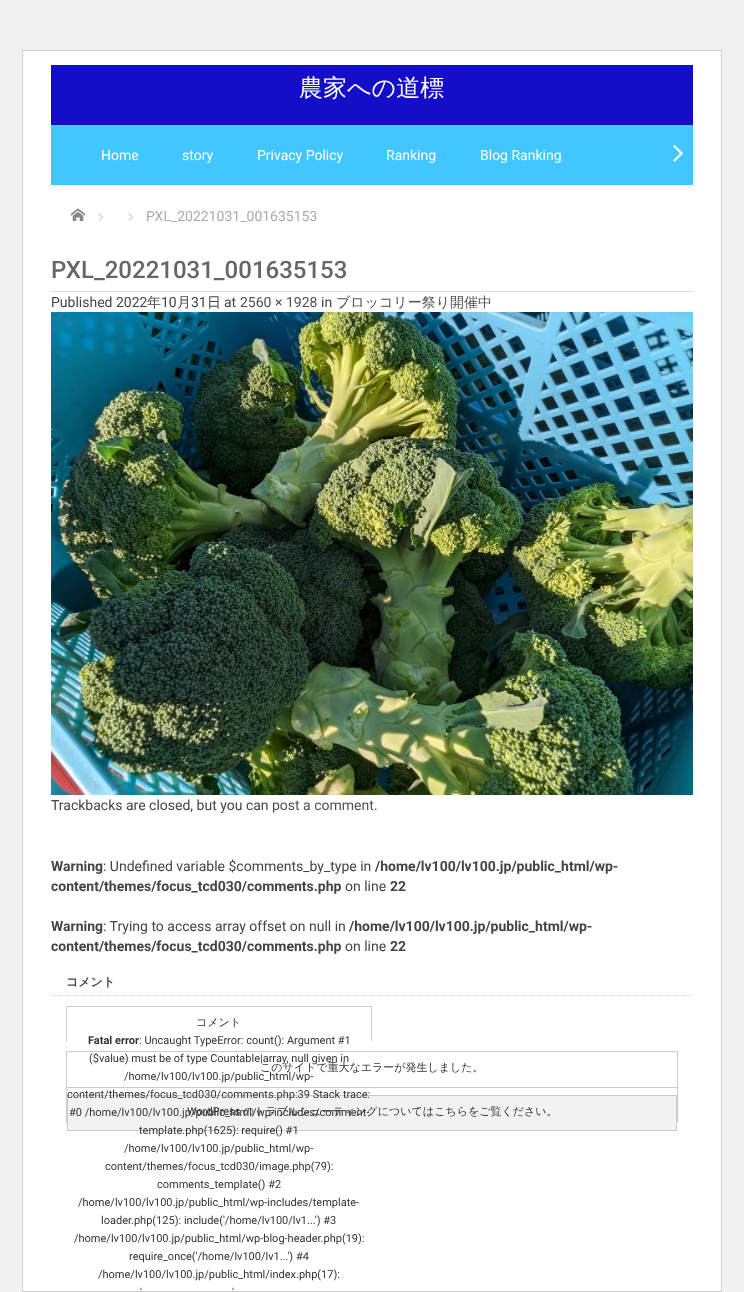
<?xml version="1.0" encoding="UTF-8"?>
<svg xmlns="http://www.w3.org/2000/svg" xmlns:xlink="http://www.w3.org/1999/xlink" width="744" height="1292">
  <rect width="100%" height="100%" fill="#f1f1f1" />
  <rect x="22.5" y="50.5" width="699" height="1241" fill="#ffffff" stroke="#ccd0d4" />
  <rect x="51" y="65" width="642" height="60" fill="#140ec9" />
  <rect x="51" y="125" width="642" height="60" fill="#42c6ff" />
  <image x="673" y="145" width="10" height="17" xlink:href="image1.png" />
  <image x="71" y="208" width="14" height="13" xlink:href="image2.png" />
  <image x="98" y="213" width="5" height="8" xlink:href="image3.png" />
  <image x="128" y="213" width="5" height="8" xlink:href="image3.png" />
  <rect x="51" y="291" width="642" height="1" fill="#dadada" />
  <image x="51" y="312" width="642" height="483" xlink:href="image4.png" />
  <path d="M 51 995.5 h 642" fill="none" stroke="#d3d3d3" stroke-dasharray="1 1" />
  <rect x="66" y="1006" width="306" height="1" fill="#cccccc" />
  <rect x="371" y="1006" width="1" height="36" fill="#cccccc" />
  <rect x="371" y="1041" width="1" height="1" fill="#ffffff" />
  <rect x="66" y="1006" width="1" height="36" fill="#cccccc" />
  <rect x="66" y="1051" width="612" height="1" fill="#cccccc" />
  <rect x="677" y="1051" width="1" height="36" fill="#cccccc" />
  <rect x="677" y="1086" width="1" height="1" fill="#ffffff" />
  <rect x="66" y="1051" width="1" height="36" fill="#cccccc" />
  <rect x="66" y="1087" width="612" height="1" fill="#cccccc" />
  <rect x="677" y="1087" width="1" height="36" fill="#cccccc" />
  <rect x="677" y="1122" width="1" height="1" fill="#ffffff" />
  <rect x="66" y="1087" width="1" height="36" fill="#cccccc" />
  <rect x="67.5" y="1095.5" width="609" height="35" fill="#f2f2f2" stroke="#cccccc" />
  <text x="299" y="96" style="font-family: WenQuanYi Zen Hei; font-size: 24px; font-weight: 500; fill: #ffffff">農家への道標</text>
  <text x="101" y="160" style="font-family: Roboto; font-size: 14px; fill: #ffffff">Home</text>
  <text x="182" y="160" style="font-family: Roboto; font-size: 14px; fill: #ffffff">story</text>
  <text x="257" y="160" style="font-family: Roboto; font-size: 14px; fill: #ffffff">Privacy Policy</text>
  <text x="386" y="160" style="font-family: Roboto; font-size: 14px; fill: #ffffff">Ranking</text>
  <text x="480" y="160" style="font-family: Roboto; font-size: 14px; fill: #ffffff">Blog Ranking</text>
  <text x="146" y="221" style="font-family: Roboto; font-size: 14px; fill: #aaaaaa">PXL_20221031_001635153</text>
  <text x="51" y="278" style="font-family: Roboto; font-size: 24px; font-weight: 500; fill: #666666">PXL_20221031_001635153</text>
  <text x="51" y="307" style="font-family: Roboto; font-size: 14px; fill: #444444">Published 2022</text>
  <text x="147" y="307" style="font-family: WenQuanYi Zen Hei; font-size: 14px; font-weight: 500; fill: #444444">年</text>
  <text x="161" y="307" style="font-family: Roboto; font-size: 14px; fill: #444444">10</text>
  <text x="177" y="307" style="font-family: WenQuanYi Zen Hei; font-size: 14px; font-weight: 500; fill: #444444">月</text>
  <text x="191" y="307" style="font-family: Roboto; font-size: 14px; fill: #444444">31</text>
  <text x="207" y="307" style="font-family: WenQuanYi Zen Hei; font-size: 14px; font-weight: 500; fill: #444444">日</text>
  <text x="224" y="307" style="font-family: Roboto; font-size: 14px; fill: #444444">at</text>
  <text x="240" y="307" style="font-family: Roboto; font-size: 14px; fill: #505050">2560 × 1928</text>
  <text x="321" y="307" style="font-family: Roboto; font-size: 14px; fill: #444444">in</text>
  <text x="336" y="307" style="font-family: WenQuanYi Zen Hei; font-size: 14px; font-weight: 500; fill: #505050">ブロッコリー祭り開催中</text>
  <text x="51" y="810" style="font-family: Roboto; font-size: 14px; fill: #444444">Trackbacks are closed, but you can</text>
  <text x="272" y="810" style="font-family: Roboto; font-size: 14px; fill: #505050">post a comment</text>
  <text x="374" y="810" style="font-family: Roboto; font-size: 14px; fill: #444444">.</text>
  <text x="51" y="871" style="font-family: Roboto; font-size: 14px; font-weight: bold; fill: #444444">Warning</text>
  <text x="103" y="871" style="font-family: Roboto; font-size: 14px; fill: #444444">: Undefined variable $comments_by_type in</text>
  <text x="375" y="871" style="font-family: Roboto; font-size: 14px; font-weight: bold; fill: #444444">/home/lv100/lv100.jp/public_html/wp-</text>
  <text x="51" y="891" style="font-family: Roboto; font-size: 14px; font-weight: bold; fill: #444444">content/themes/focus_tcd030/comments.php</text>
  <text x="345" y="891" style="font-family: Roboto; font-size: 14px; fill: #444444">on line</text>
  <text x="390" y="891" style="font-family: Roboto; font-size: 14px; font-weight: bold; fill: #444444">22</text>
  <text x="51" y="931" style="font-family: Roboto; font-size: 14px; font-weight: bold; fill: #444444">Warning</text>
  <text x="103" y="931" style="font-family: Roboto; font-size: 14px; fill: #444444">: Trying to access array offset on null in</text>
  <text x="349" y="931" style="font-family: Roboto; font-size: 14px; font-weight: bold; fill: #444444">/home/lv100/lv100.jp/public_html/wp-</text>
  <text x="51" y="951" style="font-family: Roboto; font-size: 14px; font-weight: bold; fill: #444444">content/themes/focus_tcd030/comments.php</text>
  <text x="345" y="951" style="font-family: Roboto; font-size: 14px; fill: #444444">on line</text>
  <text x="390" y="951" style="font-family: Roboto; font-size: 14px; font-weight: bold; fill: #444444">22</text>
  <text x="66" y="986" style="font-family: WenQuanYi Zen Hei; font-size: 12px; font-weight: bold; fill: #444444">コメント</text>
  <text x="196" y="1026" style="font-family: WenQuanYi Zen Hei; font-size: 11px; font-weight: 500; fill: #333333">コメント</text>
  <text x="88" y="1044" style="font-family: Roboto; font-size: 11px; font-weight: bold; fill: #333333">Fatal error</text>
  <text x="139" y="1044" style="font-family: Roboto; font-size: 11px; fill: #333333">: Uncaught TypeError: count(): Argument #1</text>
  <text x="89" y="1062" style="font-family: Roboto; font-size: 11px; fill: #333333">($value) must be of type Countable|array, null given in</text>
  <text x="124" y="1080" style="font-family: Roboto; font-size: 11px; fill: #333333">/home/lv100/lv100.jp/public_html/wp-</text>
  <text x="67" y="1098" style="font-family: Roboto; font-size: 11px; fill: #333333">content/themes/focus_tcd030/comments.php:39 Stack trace:</text>
  <text x="139" y="1134" style="font-family: Roboto; font-size: 11px; fill: #333333">template.php(1625): require() #1</text>
  <text x="124" y="1152" style="font-family: Roboto; font-size: 11px; fill: #333333">/home/lv100/lv100.jp/public_html/wp-</text>
  <text x="105" y="1170" style="font-family: Roboto; font-size: 11px; fill: #333333">content/themes/focus_tcd030/image.php(79):</text>
  <text x="157" y="1188" style="font-family: Roboto; font-size: 11px; fill: #333333">comments_template() #2</text>
  <text x="78" y="1206" style="font-family: Roboto; font-size: 11px; fill: #333333">/home/lv100/lv100.jp/public_html/wp-includes/template-</text>
  <text x="101" y="1224" style="font-family: Roboto; font-size: 11px; fill: #333333">loader.php(125): include('/home/lv100/lv1...') #3</text>
  <text x="74" y="1242" style="font-family: Roboto; font-size: 11px; fill: #333333">/home/lv100/lv100.jp/public_html/wp-blog-header.php(19):</text>
  <text x="129" y="1260" style="font-family: Roboto; font-size: 11px; fill: #333333">require_once('/home/lv100/lv1...') #4</text>
  <text x="98" y="1278" style="font-family: Roboto; font-size: 11px; fill: #333333">/home/lv100/lv100.jp/public_html/index.php(17):</text>
  <text x="140" y="1296" style="font-family: Roboto; font-size: 11px; fill: #333333">'</text>
  <text x="232" y="1296" style="font-family: Roboto; font-size: 11px; fill: #333333">'</text>
  <text x="260" y="1071" style="font-family: WenQuanYi Zen Hei; font-size: 11px; font-weight: 500; fill: #333333">このサイトで重大なエラーが発生しました。</text>
  <text x="187" y="1115" style="font-family: Roboto; font-size: 11px; fill: #333333">WordPress</text>
  <text x="243" y="1115" style="font-family: WenQuanYi Zen Hei; font-size: 11px; font-weight: 500; fill: #333333">のトラブルシューティングについてはこちらをご覧ください。</text>
  <text x="69" y="1116" style="font-family: Roboto; font-size: 11px; fill: #333333">#0 /home/lv100/lv100.jp/public_html/wp-includes/comment-</text>
</svg>
